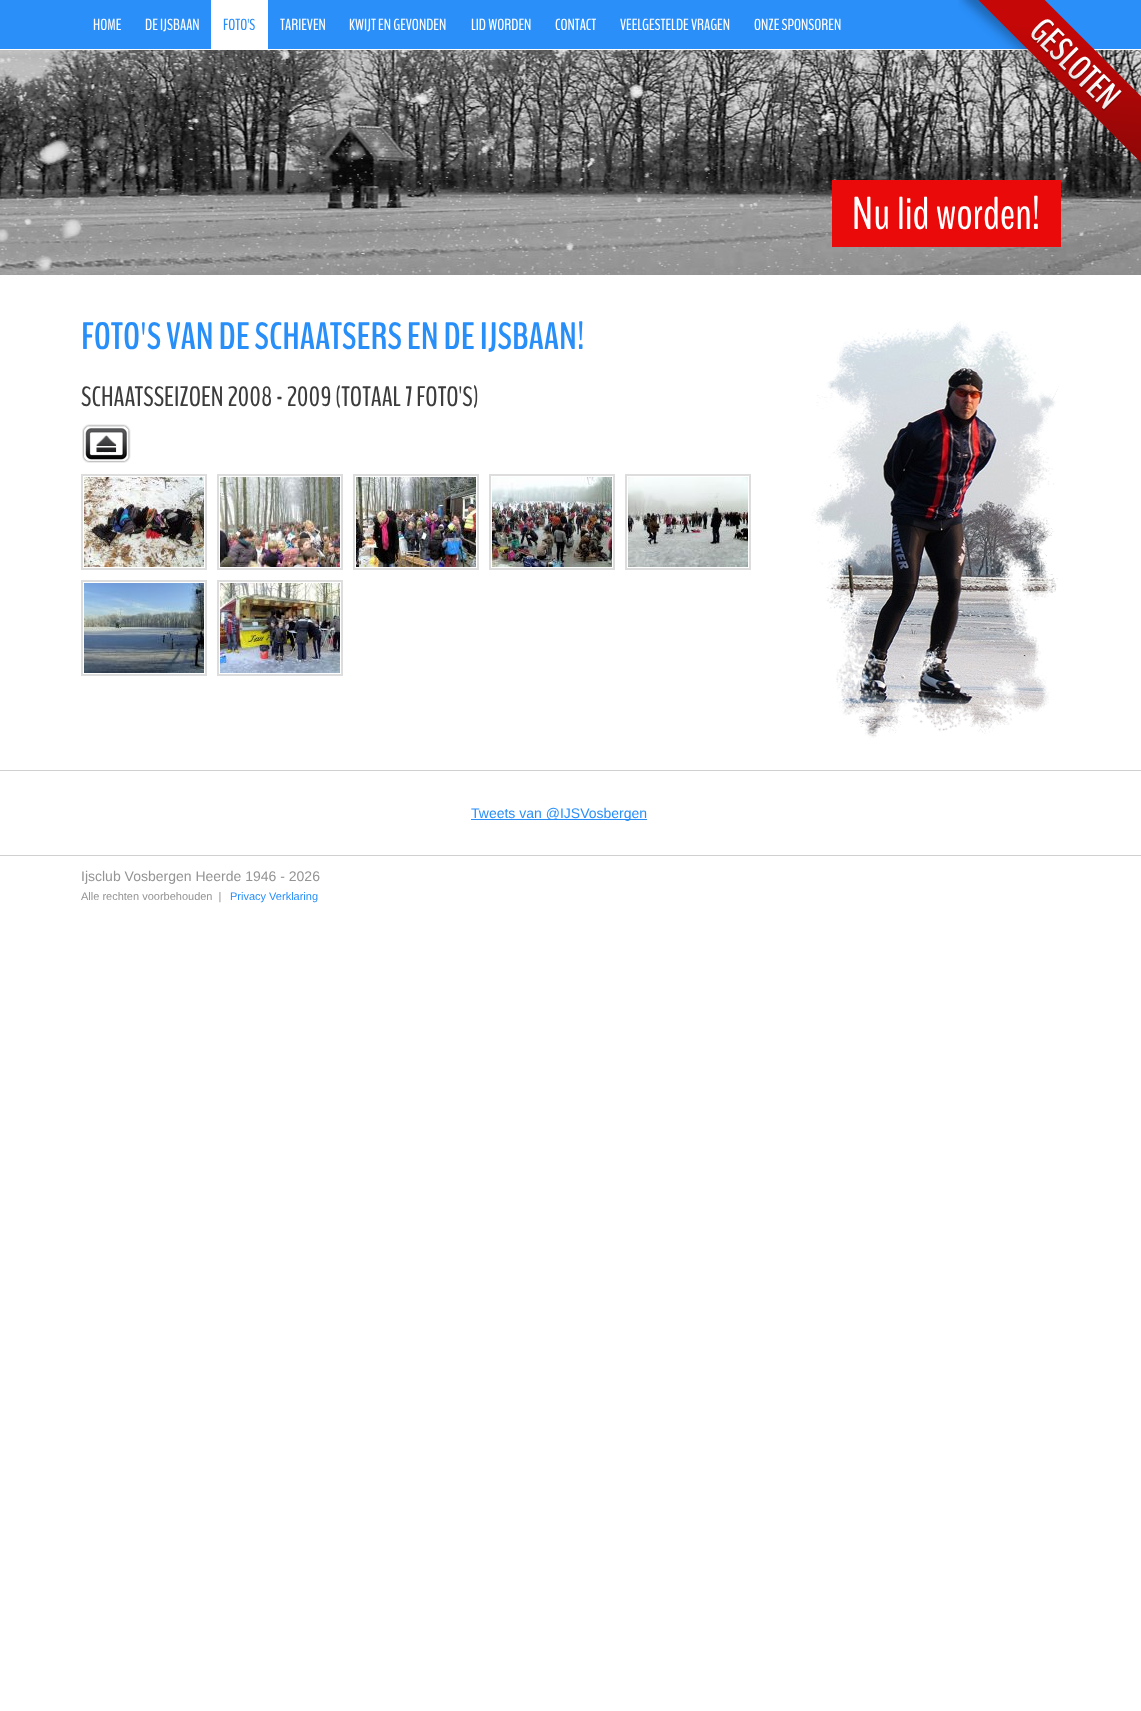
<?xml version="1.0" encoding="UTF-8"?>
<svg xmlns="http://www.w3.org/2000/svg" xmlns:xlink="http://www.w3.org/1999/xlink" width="1141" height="1711">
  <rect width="100%" height="100%" fill="#ffffff" />
  <rect width="1141" height="49" fill="#2a8ff9" />
  <rect y="855" width="1141" height="1" fill="#d0d0d0" />
  <rect x="211" width="57" height="49" fill="#ffffff" />
  <image x="0" y="50" width="1141" height="225" xlink:href="image2.png" />
  <image x="958" y="0" width="183" height="163" xlink:href="image1.png" />
  <rect x="832" y="180" width="229" height="67" fill="#ea0a0a" />
  <image x="82" y="424" width="49" height="39" xlink:href="image3.png" />
  <rect x="82" y="475" width="124" height="94" fill="none" stroke="#dddddd" stroke-width="2" />
  <image x="84" y="477" width="120" height="90" xlink:href="image4.png" />
  <rect x="218" y="475" width="124" height="94" fill="none" stroke="#dddddd" stroke-width="2" />
  <image x="220" y="477" width="120" height="90" xlink:href="image5.png" />
  <rect x="354" y="475" width="124" height="94" fill="none" stroke="#dddddd" stroke-width="2" />
  <image x="356" y="477" width="120" height="90" xlink:href="image6.png" />
  <rect x="490" y="475" width="124" height="94" fill="none" stroke="#dddddd" stroke-width="2" />
  <image x="492" y="477" width="120" height="90" xlink:href="image7.png" />
  <rect x="626" y="475" width="124" height="94" fill="none" stroke="#dddddd" stroke-width="2" />
  <image x="628" y="477" width="120" height="90" xlink:href="image8.png" />
  <rect x="82" y="581" width="124" height="94" fill="none" stroke="#dddddd" stroke-width="2" />
  <image x="84" y="583" width="120" height="90" xlink:href="image9.png" />
  <rect x="218" y="581" width="124" height="94" fill="none" stroke="#dddddd" stroke-width="2" />
  <image x="220" y="583" width="120" height="90" xlink:href="image10.png" />
  <image x="811" y="320" width="249" height="419" xlink:href="image11.png" />
  <image x="811" y="320" width="250" height="420" xlink:href="image12.png" />
  <rect y="770" width="1141" height="1" fill="#d0d0d0" />
  <rect x="471" y="819" width="176" height="1" fill="#298ff8" />
  <text x="93" y="30" style="font-family: BenchNine; font-size: 16px; fill: #ffffff">HOME</text>
  <text x="145" y="30" style="font-family: BenchNine; font-size: 16px; fill: #ffffff">DE IJSBAAN</text>
  <text x="223" y="30" style="font-family: BenchNine; font-size: 16px; fill: #298ff8">FOTO'S</text>
  <text x="280" y="30" style="font-family: BenchNine; font-size: 16px; fill: #ffffff">TARIEVEN</text>
  <text x="349" y="30" style="font-family: BenchNine; font-size: 16px; fill: #ffffff">KWIJT EN GEVONDEN</text>
  <text x="471" y="30" style="font-family: BenchNine; font-size: 16px; fill: #ffffff">LID WORDEN</text>
  <text x="555" y="30" style="font-family: BenchNine; font-size: 16px; fill: #ffffff">CONTACT</text>
  <text x="620" y="30" style="font-family: BenchNine; font-size: 16px; fill: #ffffff">VEELGESTELDE VRAGEN</text>
  <text x="754" y="30" style="font-family: BenchNine; font-size: 16px; fill: #ffffff">ONZE SPONSOREN</text>
  <text x="852" y="229" style="font-family: BenchNine; font-size: 46px; fill: #ffffff">Nu lid worden!</text>
  <text x="81" y="349" style="font-family: BenchNine; font-size: 38px; font-weight: bold; fill: #298ff8">FOTO'S VAN DE SCHAATSERS EN DE IJSBAAN!</text>
  <text x="81" y="406" style="font-family: BenchNine; font-size: 28px; fill: #3c3c3c">SCHAATSSEIZOEN 2008 - 2009 (TOTAAL 7 FOTO'S)</text>
  <text x="471" y="818" style="font-family: Liberation Sans; font-size: 14px; fill: #298ff8">Tweets van @IJSVosbergen</text>
  <text x="81" y="881" style="font-family: Liberation Sans; font-size: 14px; fill: #949494">Ijsclub Vosbergen Heerde 1946 - 2026</text>
  <text x="81" y="900" style="font-family: Liberation Sans; font-size: 11px; fill: #949494" xml:space="preserve">Alle rechten voorbehouden  |</text>
  <text x="230" y="900" style="font-family: Liberation Sans; font-size: 11px; fill: #298ff8">Privacy Verklaring</text>
</svg>
